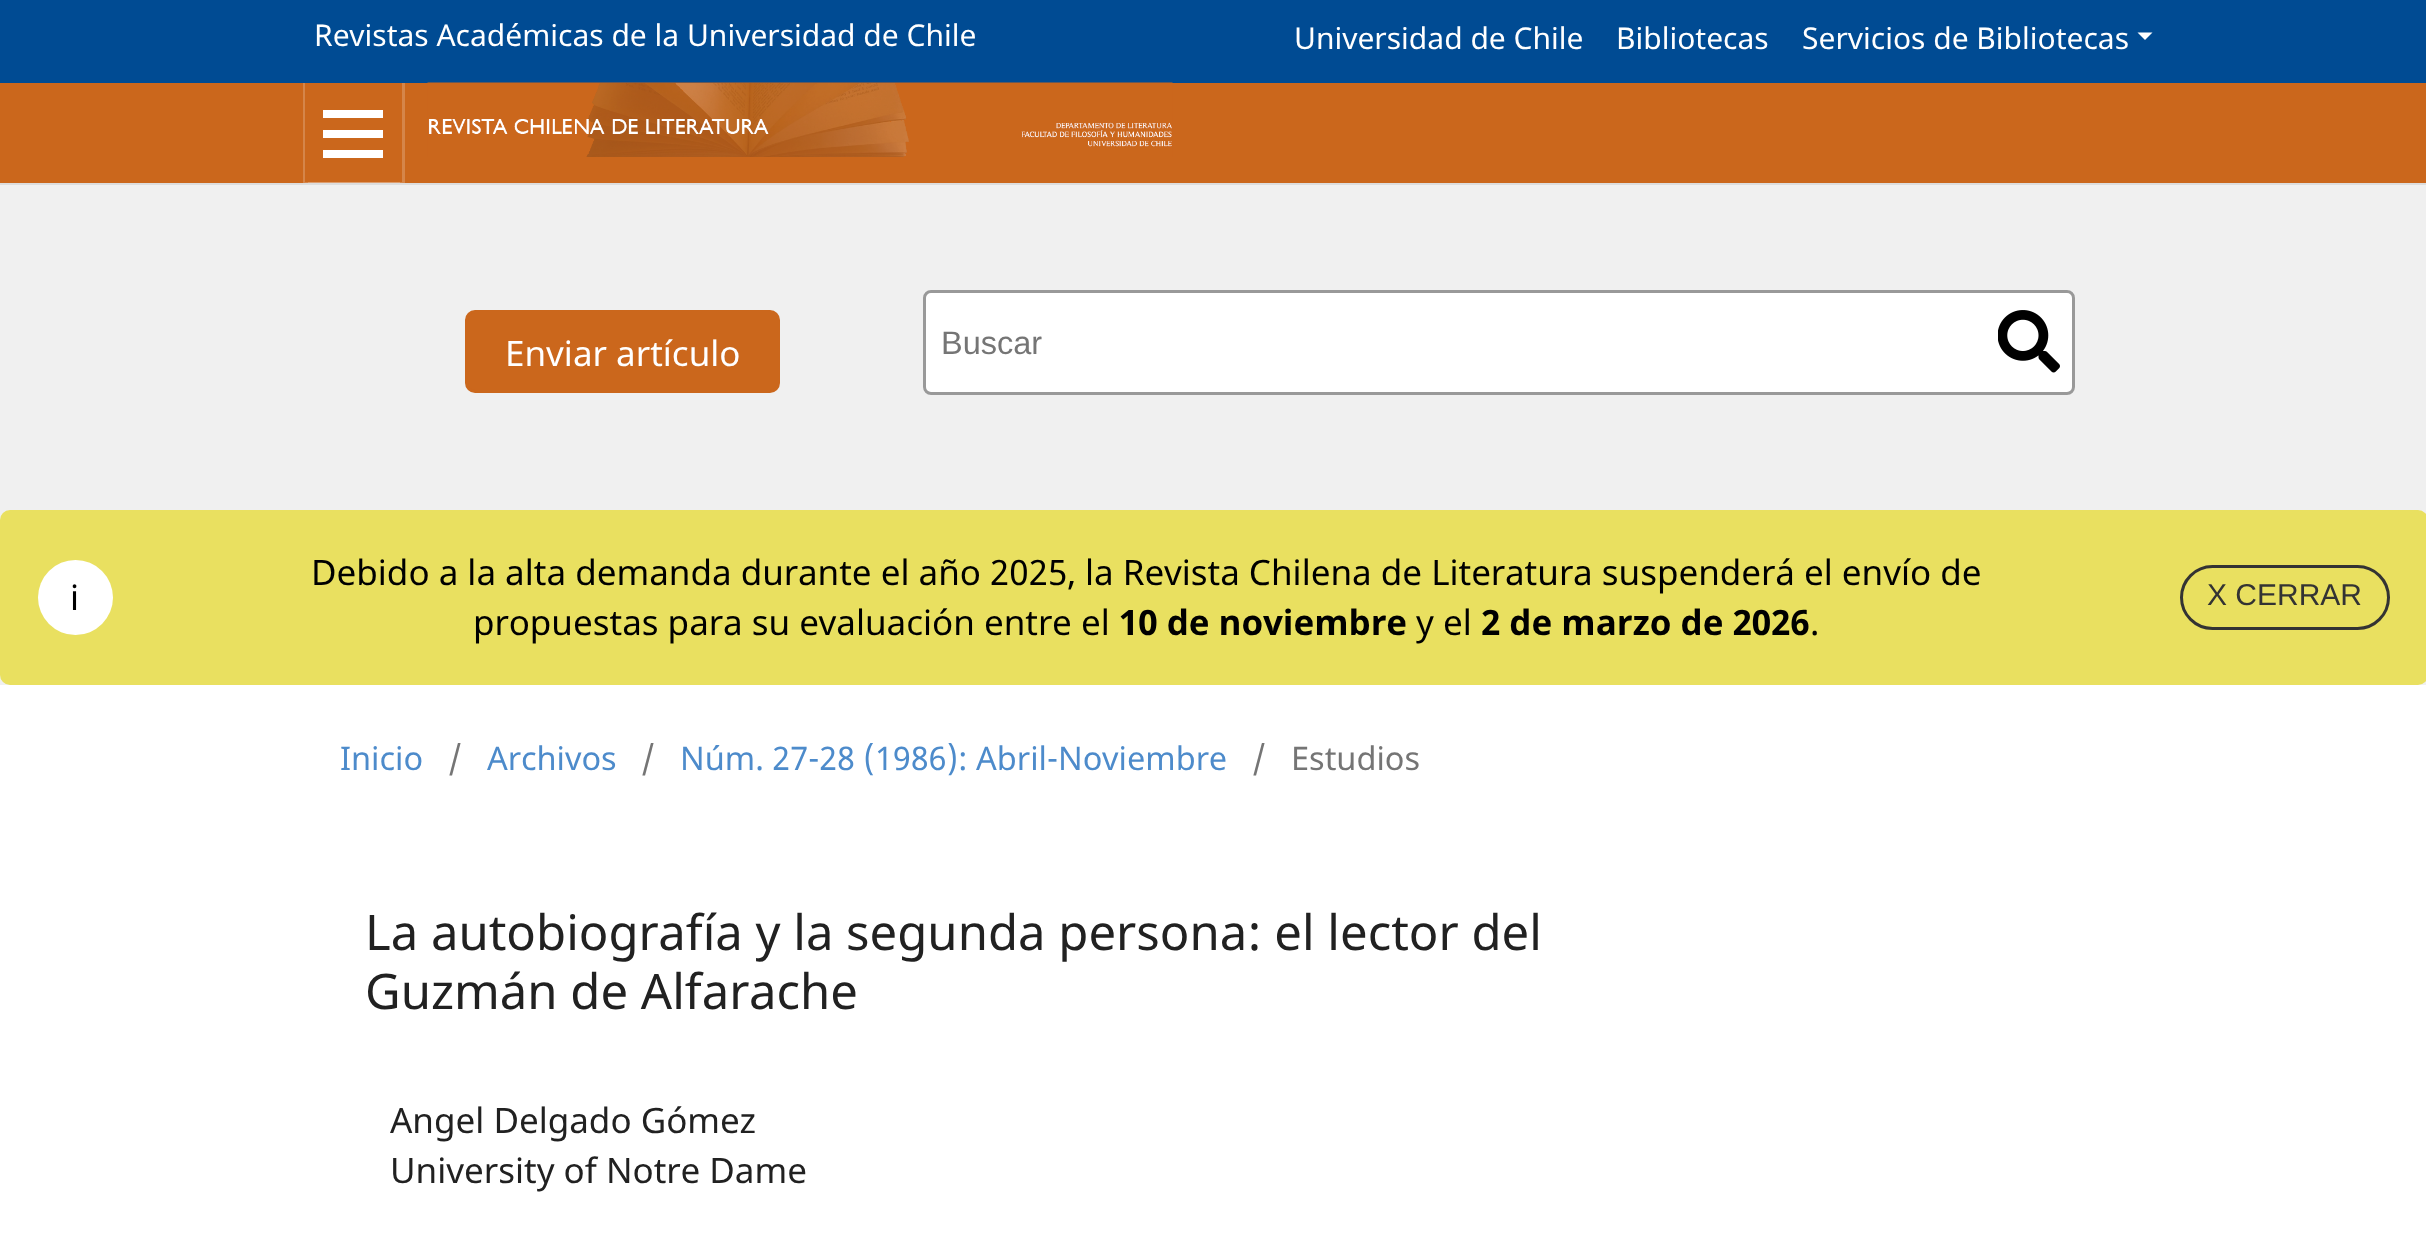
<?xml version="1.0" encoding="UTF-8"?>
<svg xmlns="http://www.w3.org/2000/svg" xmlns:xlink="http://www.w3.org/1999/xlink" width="2426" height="1239">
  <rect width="100%" height="100%" fill="#ffffff" />
  <rect y="83" width="2426" height="100" fill="#cb671c" />
  <rect y="183" width="2426" height="2" fill="#dddddd" />
  <rect width="2426" height="83" fill="#004b93" />
  <path d="M 2137.5 32.5 h 15 l -7.5 7.5 z" fill="#ffffff" />
  <path d="M 303 83 v 100 h 97 v -1 h -95 v -99 z" fill="#d58549" />
  <path d="M 308 182 v 1 h 97 v -100 h -3 v 99 z" fill="#ffffff" fill-opacity="0.2" />
  <rect x="323" y="150" width="60" height="8" fill="#ffffff" />
  <rect x="323" y="110" width="60" height="8" fill="#ffffff" />
  <rect x="323" y="130" width="60" height="8" fill="#ffffff" />
  <image x="427" y="82" width="746" height="75" xlink:href="image1.png" />
  <rect y="185" width="2426" height="500" fill="#f0f0f0" />
  <rect x="466.5" y="311.5" width="312" height="80" rx="8.5" fill="#cb671c" stroke="#cb671c" stroke-width="3" />
  <rect x="923" y="290" width="1152" height="105" rx="8" fill="#ffffff" />
  <rect x="924.5" y="291.5" width="1149" height="102" rx="6.5" fill="none" stroke="#000000" stroke-opacity="0.4" stroke-width="3" />
  <image x="1998" y="310" width="62" height="63" xlink:href="image2.png" />
  <rect x="1.5" y="511.5" width="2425" height="172" rx="8.5" fill="#e9e060" stroke="#e9e060" stroke-width="3" />
  <circle cx="75.5" cy="597.5" r="37.5" fill="#ffffff" />
  <rect x="2181.5" y="566.5" width="207" height="62" rx="31" fill="none" stroke="#333333" stroke-width="3" />
  <text x="314" y="46" style="font-family: Noto Sans; font-size: 30px; fill: #ffffff">Revistas Académicas de la Universidad de Chile</text>
  <text x="1294" y="49" style="font-family: Noto Sans; font-size: 30px; fill: #ffffff">Universidad de Chile</text>
  <text x="1616" y="49" style="font-family: Noto Sans; font-size: 30px; fill: #ffffff">Bibliotecas</text>
  <text x="1802" y="49" style="font-family: Noto Sans; font-size: 30px; fill: #ffffff">Servicios de Bibliotecas</text>
  <text x="505" y="366" style="font-family: Noto Sans; font-size: 35px; fill: #ffffff">Enviar artículo</text>
  <text x="941" y="354" style="font-family: Liberation Sans; font-size: 32.5px; fill: #757575">Buscar</text>
  <text x="70" y="610" style="font-family: Noto Sans; font-size: 35px; fill: #000000">i</text>
  <text x="311" y="585" style="font-family: Noto Sans; font-size: 35px; fill: #000000">Debido a la alta demanda durante el año 2025, la Revista Chilena de Literatura suspenderá el envío de</text>
  <text x="473" y="635" style="font-family: Noto Sans; font-size: 35px; fill: #000000">propuestas para su evaluación entre el</text>
  <text x="1119" y="635" style="font-family: Noto Sans; font-size: 35px; font-weight: bold; fill: #000000">10 de noviembre</text>
  <text x="1416" y="635" style="font-family: Noto Sans; font-size: 35px; fill: #000000">y el</text>
  <text x="1481" y="635" style="font-family: Noto Sans; font-size: 35px; font-weight: bold; fill: #000000">2 de marzo de 2026</text>
  <text x="1810" y="635" style="font-family: Noto Sans; font-size: 35px; fill: #000000">.</text>
  <text x="2207" y="605" style="font-family: Liberation Sans; font-size: 30px; fill: #333333">X CERRAR</text>
  <text x="340" y="770" style="font-family: Noto Sans; font-size: 32.5px; fill: #4d8bcb">Inicio</text>
  <text x="448" y="770" style="font-family: Noto Sans; font-size: 32.5px; fill: #757575">/</text>
  <text x="487" y="770" style="font-family: Noto Sans; font-size: 32.5px; fill: #4d8bcb">Archivos</text>
  <text x="641" y="770" style="font-family: Noto Sans; font-size: 32.5px; fill: #757575">/</text>
  <text x="680" y="770" style="font-family: Noto Sans; font-size: 32.5px; fill: #4d8bcb">Núm. 27-28 (1986): Abril-Noviembre</text>
  <text x="1252" y="770" style="font-family: Noto Sans; font-size: 32.5px; fill: #757575">/</text>
  <text x="1291" y="770" style="font-family: Noto Sans; font-size: 32.5px; fill: #757575">Estudios</text>
  <text x="365" y="950" style="font-family: Noto Sans; font-size: 49px; fill: #212121">La autobiografía y la segunda persona: el lector del</text>
  <text x="365" y="1009" style="font-family: Noto Sans; font-size: 49px; fill: #212121">Guzmán de Alfarache</text>
  <text x="390" y="1133" style="font-family: Noto Sans; font-size: 35px; fill: #212121">Angel Delgado Gómez</text>
  <text x="390" y="1183" style="font-family: Noto Sans; font-size: 35px; fill: #212121">University of Notre Dame</text>
</svg>
